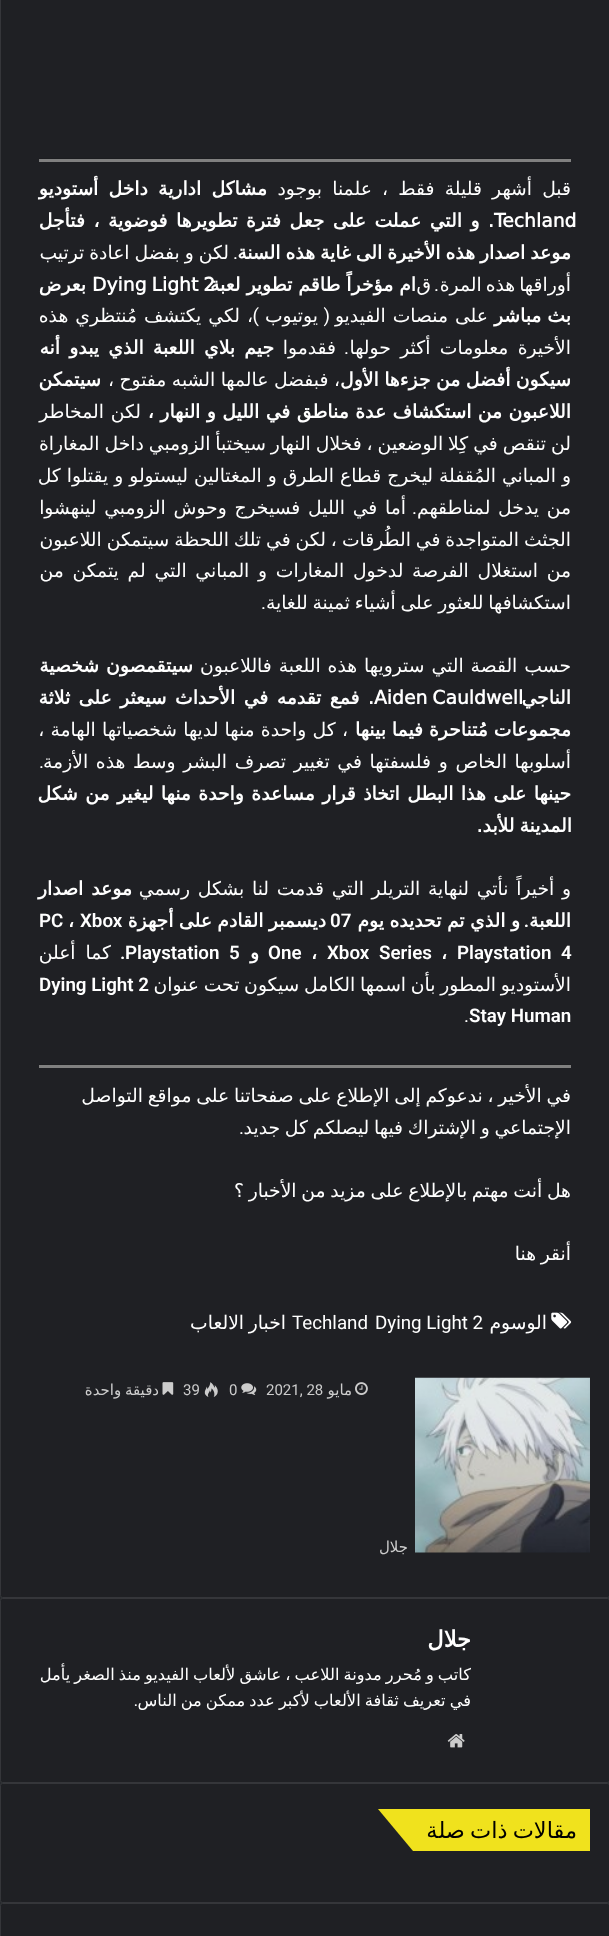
<?xml version="1.0" encoding="UTF-8"?>
<svg xmlns="http://www.w3.org/2000/svg" xmlns:xlink="http://www.w3.org/1999/xlink" width="609" height="1936">
  <rect width="100%" height="100%" fill="#27292d" />
  <rect x="0.5" y="-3.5" width="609" height="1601" rx="2" fill="#1f2024" stroke="#35363a" />
  <rect x="39" y="158" width="532" height="1" fill="#1c1d20" />
  <rect x="39" y="159" width="532" height="3" fill="#808080" />
  <rect x="39" y="1064" width="532" height="1" fill="#1c1d20" />
  <rect x="39" y="1065" width="532" height="3" fill="#808080" />
  <image x="551" y="1312" width="21" height="17" xlink:href="image1.png" />
  <image x="355" y="1382" width="13" height="13" xlink:href="image2.png" />
  <image x="241" y="1383" width="16" height="12" xlink:href="image3.png" />
  <image x="204" y="1382" width="14" height="15" xlink:href="image4.png" />
  <image x="162" y="1382" width="12" height="13" xlink:href="image5.png" />
  <image x="415" y="1377" width="175" height="176" xlink:href="image6.png" />
  <rect x="0.5" y="1598.5" width="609" height="184" rx="2" fill="#1f2024" stroke="#35363a" />
  <image x="447" y="1734" width="18" height="14" xlink:href="image7.png" />
  <rect x="0.5" y="1783.5" width="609" height="119" rx="2" fill="#1f2024" stroke="#35363a" />
  <rect x="502" y="1809" width="88" height="42" fill="#f0e21d" />
  <path d="M 378 1809 h 124 l 35 42 h -124 z" fill="#f0e21d" />
  <rect x="0.5" y="1903.5" width="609" height="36" rx="2" fill="#1f2024" stroke="#35363a" />
  <text x="571" y="195" word-spacing="4.25" style="font-family: DejaVu Sans; font-size: 18.75px; direction: rtl; fill: #ffffff">قبل أشهر قليلة فقط ، علمنا بوجود</text>
  <text x="267" y="195" word-spacing="4.25" style="font-family: DejaVu Sans; font-size: 18.75px; font-weight: bold; direction: rtl; fill: #ffffff">مشاكل ادارية داخل أستوديو</text>
  <text x="494" y="227" style="font-family: DejaVu Sans; font-size: 18.75px; font-weight: bold; fill: #ffffff">Techland</text>
  <text x="494" y="227" word-spacing="2.6" style="font-family: DejaVu Sans; font-size: 18.75px; font-weight: bold; direction: rtl; fill: #ffffff">. و التي عملت على جعل فترة تطويرها فوضوية ، فتأجل</text>
  <text x="571" y="259" word-spacing="-1" style="font-family: DejaVu Sans; font-size: 18.75px; font-weight: bold; direction: rtl; fill: #ffffff">موعد اصدار هذه الأخيرة الى غاية هذه السنة</text>
  <text x="238" y="259" style="font-family: Roboto; font-size: 18.75px; direction: rtl; fill: #ffffff">.</text>
  <text x="229" y="259" word-spacing="-1" style="font-family: DejaVu Sans; font-size: 18.75px; direction: rtl; fill: #ffffff">لكن و بفضل اعادة ترتيب</text>
  <text x="571" y="291" word-spacing="-2" style="font-family: DejaVu Sans; font-size: 18.75px; direction: rtl; fill: #ffffff">أوراقها هذه المرة</text>
  <text x="439" y="291" style="font-family: Roboto; font-size: 18.75px; direction: rtl; fill: #ffffff">.</text>
  <text x="431" y="291" style="font-family: DejaVu Sans; font-size: 18.75px; direction: rtl; fill: #ffffff">ق</text>
  <text x="92" y="291" word-spacing="-1" style="font-family: DejaVu Sans; font-size: 18.75px; font-weight: bold; fill: #ffffff">Dying Light 2</text>
  <text x="416" y="291" style="font-family: DejaVu Sans; font-size: 18.75px; font-weight: bold; direction: rtl; fill: #ffffff">ام مؤخراً طاقم تطوير لعبة</text>
  <text x="86" y="291" style="font-family: DejaVu Sans; font-size: 18.75px; font-weight: bold; direction: rtl; fill: #ffffff">بعرض</text>
  <text x="571" y="322" style="font-family: DejaVu Sans; font-size: 18.75px; font-weight: bold; direction: rtl; fill: #ffffff">بث مباشر</text>
  <text x="488" y="322" word-spacing="1" style="font-family: DejaVu Sans; font-size: 18.75px; direction: rtl; fill: #ffffff">على منصات الفيديو</text>
  <text x="330" y="322" style="font-family: Roboto; font-size: 18.75px; direction: rtl; fill: #ffffff">(</text>
  <text x="318" y="322" style="font-family: DejaVu Sans; font-size: 18.75px; direction: rtl; fill: #ffffff">يوتيوب</text>
  <text x="259" y="322" style="font-family: Roboto; font-size: 18.75px; direction: rtl; fill: #ffffff">)</text>
  <text x="253" y="322" word-spacing="1" style="font-family: DejaVu Sans; font-size: 18.75px; direction: rtl; fill: #ffffff">، لكي يكتشف مُنتظري هذه</text>
  <text x="571" y="354" word-spacing="3.5" style="font-family: DejaVu Sans; font-size: 18.75px; direction: rtl; fill: #ffffff">الأخيرة معلومات أكثر حولها</text>
  <text x="349" y="354" style="font-family: Roboto; font-size: 18.75px; direction: rtl; fill: #ffffff">.</text>
  <text x="336" y="354" style="font-family: DejaVu Sans; font-size: 18.75px; direction: rtl; fill: #ffffff">فقدموا</text>
  <text x="274" y="354" word-spacing="3.25" style="font-family: DejaVu Sans; font-size: 18.75px; font-weight: bold; direction: rtl; fill: #ffffff">جيم بلاي اللعبة الذي يبدو أنه</text>
  <text x="571" y="386" word-spacing="-0.5" style="font-family: DejaVu Sans; font-size: 18.75px; font-weight: bold; direction: rtl; fill: #ffffff">سيكون أفضل من جزءها الأول</text>
  <text x="340" y="386" word-spacing="-0.5" style="font-family: DejaVu Sans; font-size: 18.75px; direction: rtl; fill: #ffffff">، فبفضل عالمها الشبه مفتوح ،</text>
  <text x="101" y="386" style="font-family: DejaVu Sans; font-size: 18.75px; font-weight: bold; direction: rtl; fill: #ffffff">سيتمكن</text>
  <text x="571" y="418" word-spacing="0.5" style="font-family: DejaVu Sans; font-size: 18.75px; font-weight: bold; direction: rtl; fill: #ffffff">اللاعبون من استكشاف عدة مناطق في الليل و النهار ،</text>
  <text x="141" y="418" style="font-family: DejaVu Sans; font-size: 18.75px; direction: rtl; fill: #ffffff">لكن</text>
  <text x="104" y="418" style="font-family: DejaVu Sans; font-size: 18.75px; direction: rtl; fill: #ffffff">المخاطر</text>
  <text x="571" y="450" word-spacing="-1" style="font-family: DejaVu Sans; font-size: 18.75px; direction: rtl; fill: #ffffff">لن تنقص في كِلا الوضعين ، فخلال النهار سيختبأ الزومبي داخل المغاراة</text>
  <text x="571" y="482" style="font-family: DejaVu Sans; font-size: 18.75px; direction: rtl; fill: #ffffff">و المباني المُقفلة ليخرج قطاع الطرق و المغتالين ليستولو و يقتلوا كل</text>
  <text x="571" y="514" word-spacing="1.75" style="font-family: DejaVu Sans; font-size: 18.75px; direction: rtl; fill: #ffffff">من يدخل لمناطقهم</text>
  <text x="417" y="514" style="font-family: Roboto; font-size: 18.75px; direction: rtl; fill: #ffffff">.</text>
  <text x="406" y="514" word-spacing="1.75" style="font-family: DejaVu Sans; font-size: 18.75px; direction: rtl; fill: #ffffff">أما في الليل فسيخرج وحوش الزومبي لينهشوا</text>
  <text x="571" y="546" word-spacing="-1" style="font-family: DejaVu Sans; font-size: 18.75px; direction: rtl; fill: #ffffff">الجثث المتواجدة في الطُرقات ، لكن في تلك اللحظة سيتمكن اللاعبون</text>
  <text x="571" y="577" word-spacing="2.75" style="font-family: DejaVu Sans; font-size: 18.75px; direction: rtl; fill: #ffffff">من استغلال الفرصة لدخول المغارات و المباني التي لم يتمكن من</text>
  <text x="571" y="609" word-spacing="-1.25" style="font-family: DejaVu Sans; font-size: 18.75px; direction: rtl; fill: #ffffff">استكشافها للعثور على أشياء ثمينة للغاية</text>
  <text x="266" y="609" style="font-family: Roboto; font-size: 18.75px; direction: rtl; fill: #ffffff">.</text>
  <text x="571" y="672" word-spacing="1" style="font-family: DejaVu Sans; font-size: 18.75px; direction: rtl; fill: #ffffff">حسب القصة التي سترويها هذه اللعبة فاللاعبون</text>
  <text x="193" y="672" word-spacing="1" style="font-family: DejaVu Sans; font-size: 18.75px; font-weight: bold; direction: rtl; fill: #ffffff">سيتقمصون شخصية</text>
  <text x="571" y="704" style="font-family: DejaVu Sans; font-size: 18.75px; font-weight: bold; direction: rtl; fill: #ffffff">الناجي</text>
  <text x="374" y="704" word-spacing="-1" style="font-family: DejaVu Sans; font-size: 18.75px; font-weight: bold; fill: #ffffff">Aiden Cauldwell</text>
  <text x="374" y="704" word-spacing="2.5" style="font-family: DejaVu Sans; font-size: 18.75px; font-weight: bold; direction: rtl; fill: #ffffff">. فمع تقدمه في الأحداث سيعثر على ثلاثة</text>
  <text x="571" y="736" style="font-family: DejaVu Sans; font-size: 18.75px; font-weight: bold; direction: rtl; fill: #ffffff">مجموعات مُتناحرة فيما بينها</text>
  <text x="348" y="736" word-spacing="0.25" style="font-family: DejaVu Sans; font-size: 18.75px; direction: rtl; fill: #ffffff">، كل واحدة منها لديها شخصياتها الهامة ،</text>
  <text x="571" y="768" word-spacing="1.75" style="font-family: DejaVu Sans; font-size: 18.75px; direction: rtl; fill: #ffffff">أسلوبها الخاص و فلسفتها في تغيير تصرف البشر وسط هذه الأزمة</text>
  <text x="44" y="768" style="font-family: Roboto; font-size: 18.75px; direction: rtl; fill: #ffffff">.</text>
  <text x="571" y="800" word-spacing="1.5" style="font-family: DejaVu Sans; font-size: 18.75px; font-weight: bold; direction: rtl; fill: #ffffff">حينها على هذا البطل اتخاذ قرار مساعدة واحدة منها ليغير من شكل</text>
  <text x="572" y="832" word-spacing="-1" style="font-family: DejaVu Sans; font-size: 18.75px; font-weight: bold; direction: rtl; fill: #ffffff">المدينة للأبد.</text>
  <text x="571" y="895" word-spacing="1.75" style="font-family: DejaVu Sans; font-size: 18.75px; direction: rtl; fill: #ffffff">و أخيراً نأتي لنهاية التريلر التي قدمت لنا بشكل رسمي</text>
  <text x="132" y="895" word-spacing="2" style="font-family: DejaVu Sans; font-size: 18.75px; font-weight: bold; direction: rtl; fill: #ffffff">موعد اصدار</text>
  <text x="571" y="927" style="font-family: DejaVu Sans; font-size: 18.75px; font-weight: bold; direction: rtl; fill: #ffffff">اللعبة</text>
  <text x="529" y="927" style="font-family: Roboto; font-size: 18.75px; font-weight: 600; direction: rtl; fill: #ffffff">.</text>
  <text x="520" y="927" word-spacing="-0.5" style="font-family: DejaVu Sans; font-size: 18.75px; font-weight: bold; direction: rtl; fill: #ffffff">و الذي تم تحديده يوم</text>
  <text x="330" y="927" style="font-family: Roboto; font-size: 18.75px; font-weight: 600; fill: #ffffff">07</text>
  <text x="326" y="927" word-spacing="-0.5" style="font-family: DejaVu Sans; font-size: 18.75px; font-weight: bold; direction: rtl; fill: #ffffff">ديسمبر القادم على أجهزة</text>
  <text x="80" y="927" style="font-family: Roboto; font-size: 18.75px; font-weight: 600; fill: #ffffff">Xbox</text>
  <text x="68" y="927" style="font-family: DejaVu Sans; font-size: 18.75px; font-weight: bold; fill: #ffffff">،</text>
  <text x="39" y="927" style="font-family: Roboto; font-size: 18.75px; font-weight: 600; fill: #ffffff">PC</text>
  <text x="457" y="959" word-spacing="5" style="font-family: Roboto; font-size: 18.75px; font-weight: 600; fill: #ffffff">Playstation 4</text>
  <text x="441" y="959" style="font-family: DejaVu Sans; font-size: 18.75px; font-weight: bold; fill: #ffffff">،</text>
  <text x="327" y="959" word-spacing="5" style="font-family: Roboto; font-size: 18.75px; font-weight: 600; fill: #ffffff">Xbox Series</text>
  <text x="311" y="959" style="font-family: DejaVu Sans; font-size: 18.75px; font-weight: bold; fill: #ffffff">،</text>
  <text x="268" y="959" style="font-family: Roboto; font-size: 18.75px; font-weight: 600; fill: #ffffff">One</text>
  <text x="259" y="959" style="font-family: DejaVu Sans; font-size: 18.75px; font-weight: bold; direction: rtl; fill: #ffffff">و</text>
  <text x="125" y="959" word-spacing="5" style="font-family: Roboto; font-size: 18.75px; font-weight: 600; fill: #ffffff">Playstation 5</text>
  <text x="120" y="959" style="font-family: Roboto; font-size: 18.75px; font-weight: 600; fill: #ffffff">.</text>
  <text x="111" y="959" word-spacing="4" style="font-family: DejaVu Sans; font-size: 18.75px; direction: rtl; fill: #ffffff">كما أعلن</text>
  <text x="571" y="991" word-spacing="-1.25" style="font-family: DejaVu Sans; font-size: 18.75px; direction: rtl; fill: #ffffff">الأستوديو المطور بأن اسمها الكامل سيكون تحت عنوان</text>
  <text x="39" y="991" style="font-family: Roboto; font-size: 18.75px; font-weight: 600; fill: #ffffff">Dying Light 2</text>
  <text x="469" y="1022" style="font-family: Roboto; font-size: 18.75px; font-weight: 600; fill: #ffffff">Stay Human</text>
  <text x="464" y="1022" style="font-family: Roboto; font-size: 18.75px; fill: #ffffff">.</text>
  <text x="571" y="1102" word-spacing="-1.25" style="font-family: DejaVu Sans; font-size: 18.75px; direction: rtl; fill: #ffffff">في الأخير ، ندعوكم إلى الإطلاع على صفحاتنا على مواقع التواصل</text>
  <text x="571" y="1134" word-spacing="-1.25" style="font-family: DejaVu Sans; font-size: 18.75px; direction: rtl; fill: #ffffff">الإجتماعي و الإشتراك فيها ليصلكم كل جديد</text>
  <text x="244" y="1134" style="font-family: Roboto; font-size: 18.75px; direction: rtl; fill: #ffffff">.</text>
  <text x="571" y="1197" word-spacing="-1.25" style="font-family: DejaVu Sans; font-size: 18.75px; direction: rtl; fill: #ffffff">هل أنت مهتم بالإطلاع على مزيد من الأخبار ؟</text>
  <text x="571" y="1260" word-spacing="-1.25" style="font-family: DejaVu Sans; font-size: 18.75px; direction: rtl; fill: #ffffff">أنقر هنا</text>
  <text x="547" y="1329" style="font-family: DejaVu Sans; font-size: 18.75px; direction: rtl; fill: #ffffff">الوسوم</text>
  <text x="375" y="1329" style="font-family: Roboto; font-size: 18.75px; fill: #ffffff">Dying Light 2</text>
  <text x="292" y="1329" style="font-family: Roboto; font-size: 18.75px; fill: #ffffff">Techland</text>
  <text x="286" y="1329" word-spacing="-1.25" style="font-family: DejaVu Sans; font-size: 18.75px; direction: rtl; fill: #ffffff">اخبار الالعاب</text>
  <text x="352" y="1395" style="font-family: DejaVu Sans; font-size: 15px; direction: rtl; fill: #cccccc">مايو</text>
  <text x="266" y="1395" style="font-family: Roboto; font-size: 15px; fill: #cccccc">2021, 28</text>
  <text x="229" y="1395" style="font-family: Roboto; font-size: 15px; fill: #cccccc">0</text>
  <text x="183" y="1395" style="font-family: Roboto; font-size: 15px; fill: #cccccc">39</text>
  <text x="159" y="1395" word-spacing="-1" style="font-family: DejaVu Sans; font-size: 15px; direction: rtl; fill: #cccccc">دقيقة واحدة</text>
  <text x="408" y="1552" style="font-family: DejaVu Sans; font-size: 15px; direction: rtl; fill: #cccccc">جلال</text>
  <text x="471" y="1647" style="font-family: DejaVu Sans; font-size: 22.5px; font-weight: bold; direction: rtl; fill: #ffffff">جلال</text>
  <text x="471" y="1680" word-spacing="-1.1" style="font-family: DejaVu Sans; font-size: 16.25px; direction: rtl; fill: #ffffff">كاتب و مُحرر مدونة اللاعب ، عاشق لألعاب الفيديو منذ الصغر يأمل</text>
  <text x="471" y="1706" word-spacing="-1.1" style="font-family: DejaVu Sans; font-size: 16.25px; direction: rtl; fill: #ffffff">في تعريف ثقافة الألعاب لأكبر عدد ممكن من الناس</text>
  <text x="138" y="1706" style="font-family: Roboto; font-size: 16.25px; direction: rtl; fill: #ffffff">.</text>
  <text x="577" y="1838" word-spacing="-2" style="font-family: DejaVu Sans; font-size: 22.5px; direction: rtl; fill: #000000">مقالات ذات صلة</text>
</svg>
